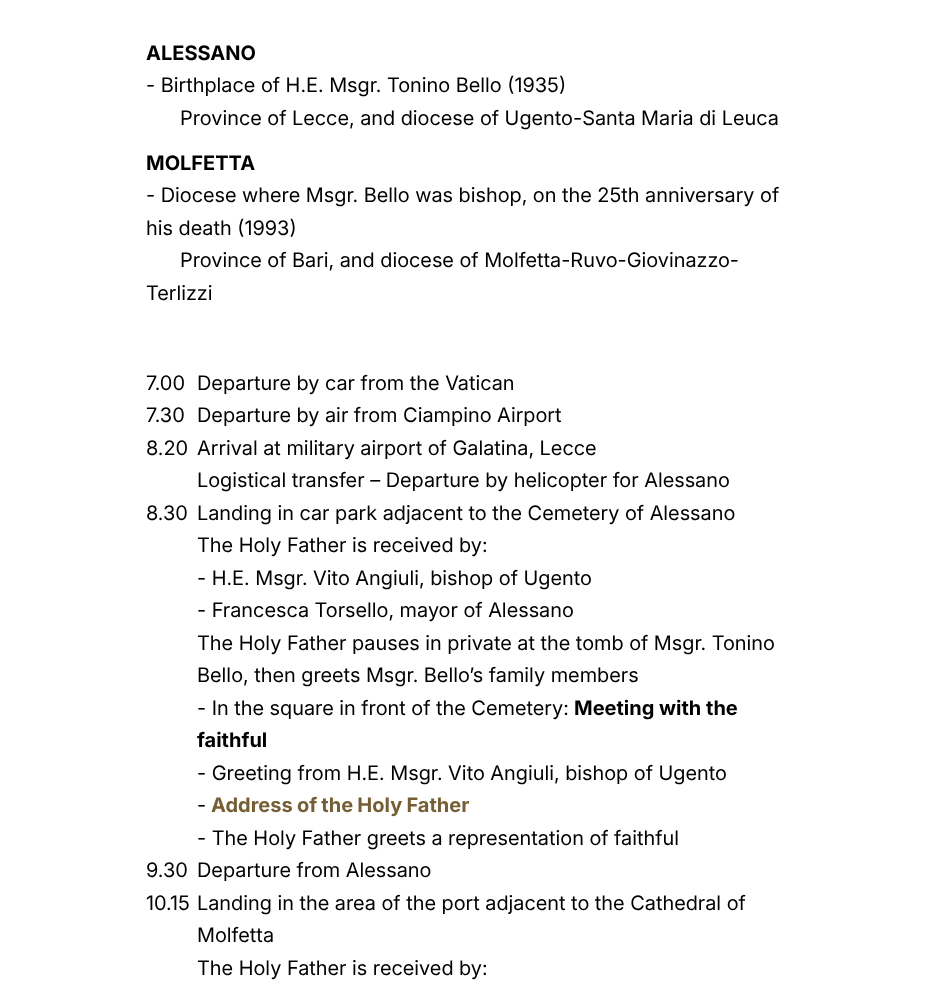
<?xml version="1.0" encoding="UTF-8"?>
<svg xmlns="http://www.w3.org/2000/svg" xmlns:xlink="http://www.w3.org/1999/xlink" width="929" height="995">
  <rect width="100%" height="100%" fill="#ffffff" />
  <text x="146" y="60" style="font-family: Inter; font-size: 20px; font-weight: bold; fill: #000000">ALESSANO</text>
  <text x="146" y="92" style="font-family: Inter; font-size: 20px; fill: #000000">- Birthplace of H.E. Msgr. Tonino Bello (1935)</text>
  <text x="180" y="125" style="font-family: Inter; font-size: 20px; fill: #000000">Province of Lecce, and diocese of Ugento-Santa Maria di Leuca</text>
  <text x="146" y="170" style="font-family: Inter; font-size: 20px; font-weight: bold; fill: #000000">MOLFETTA</text>
  <text x="146" y="202" style="font-family: Inter; font-size: 20px; fill: #000000">- Diocese where Msgr. Bello was bishop, on the 25th anniversary of</text>
  <text x="146" y="235" style="font-family: Inter; font-size: 20px; fill: #000000">his death (1993)</text>
  <text x="180" y="267" style="font-family: Inter; font-size: 20px; fill: #000000">Province of Bari, and diocese of Molfetta-Ruvo-Giovinazzo-</text>
  <text x="146" y="300" style="font-family: Inter; font-size: 20px; fill: #000000">Terlizzi</text>
  <text x="146" y="390" style="font-family: Inter; font-size: 20px; fill: #000000">7.00</text>
  <text x="197" y="390" style="font-family: Inter; font-size: 20px; fill: #000000">Departure by car from the Vatican</text>
  <text x="146" y="422" style="font-family: Inter; font-size: 20px; fill: #000000">7.30</text>
  <text x="197" y="422" style="font-family: Inter; font-size: 20px; fill: #000000">Departure by air from Ciampino Airport</text>
  <text x="146" y="455" style="font-family: Inter; font-size: 20px; fill: #000000">8.20</text>
  <text x="197" y="455" style="font-family: Inter; font-size: 20px; fill: #000000">Arrival at military airport of Galatina, Lecce</text>
  <text x="197" y="487" style="font-family: Inter; font-size: 20px; fill: #000000">Logistical transfer – Departure by helicopter for Alessano</text>
  <text x="146" y="520" style="font-family: Inter; font-size: 20px; fill: #000000">8.30</text>
  <text x="197" y="520" style="font-family: Inter; font-size: 20px; fill: #000000">Landing in car park adjacent to the Cemetery of Alessano</text>
  <text x="197" y="552" style="font-family: Inter; font-size: 20px; fill: #000000">The Holy Father is received by:</text>
  <text x="197" y="585" style="font-family: Inter; font-size: 20px; fill: #000000">- H.E. Msgr. Vito Angiuli, bishop of Ugento</text>
  <text x="197" y="617" style="font-family: Inter; font-size: 20px; fill: #000000">- Francesca Torsello, mayor of Alessano</text>
  <text x="197" y="650" style="font-family: Inter; font-size: 20px; fill: #000000">The Holy Father pauses in private at the tomb of Msgr. Tonino</text>
  <text x="197" y="682" style="font-family: Inter; font-size: 20px; fill: #000000">Bello, then greets Msgr. Bello’s family members</text>
  <text x="197" y="715" style="font-family: Inter; font-size: 20px; fill: #000000">- In the square in front of the Cemetery:</text>
  <text x="574" y="715" style="font-family: Inter; font-size: 20px; font-weight: bold; fill: #000000">Meeting with the</text>
  <text x="197" y="747" style="font-family: Inter; font-size: 20px; font-weight: bold; fill: #000000">faithful</text>
  <text x="197" y="780" style="font-family: Inter; font-size: 20px; fill: #000000">- Greeting from H.E. Msgr. Vito Angiuli, bishop of Ugento</text>
  <text x="197" y="812" style="font-family: Inter; font-size: 20px; fill: #000000">-</text>
  <text x="211" y="812" word-spacing="-0.5" style="font-family: Inter; font-size: 20px; font-weight: bold; fill: #765e32">Address of the Holy Father</text>
  <text x="197" y="845" style="font-family: Inter; font-size: 20px; fill: #000000">- The Holy Father greets a representation of faithful</text>
  <text x="146" y="877" style="font-family: Inter; font-size: 20px; fill: #000000">9.30</text>
  <text x="197" y="877" style="font-family: Inter; font-size: 20px; fill: #000000">Departure from Alessano</text>
  <text x="146" y="910" style="font-family: Inter; font-size: 20px; fill: #000000">10.15</text>
  <text x="197" y="910" style="font-family: Inter; font-size: 20px; fill: #000000">Landing in the area of the port adjacent to the Cathedral of</text>
  <text x="197" y="942" style="font-family: Inter; font-size: 20px; fill: #000000">Molfetta</text>
  <text x="197" y="975" style="font-family: Inter; font-size: 20px; fill: #000000">The Holy Father is received by:</text>
</svg>
